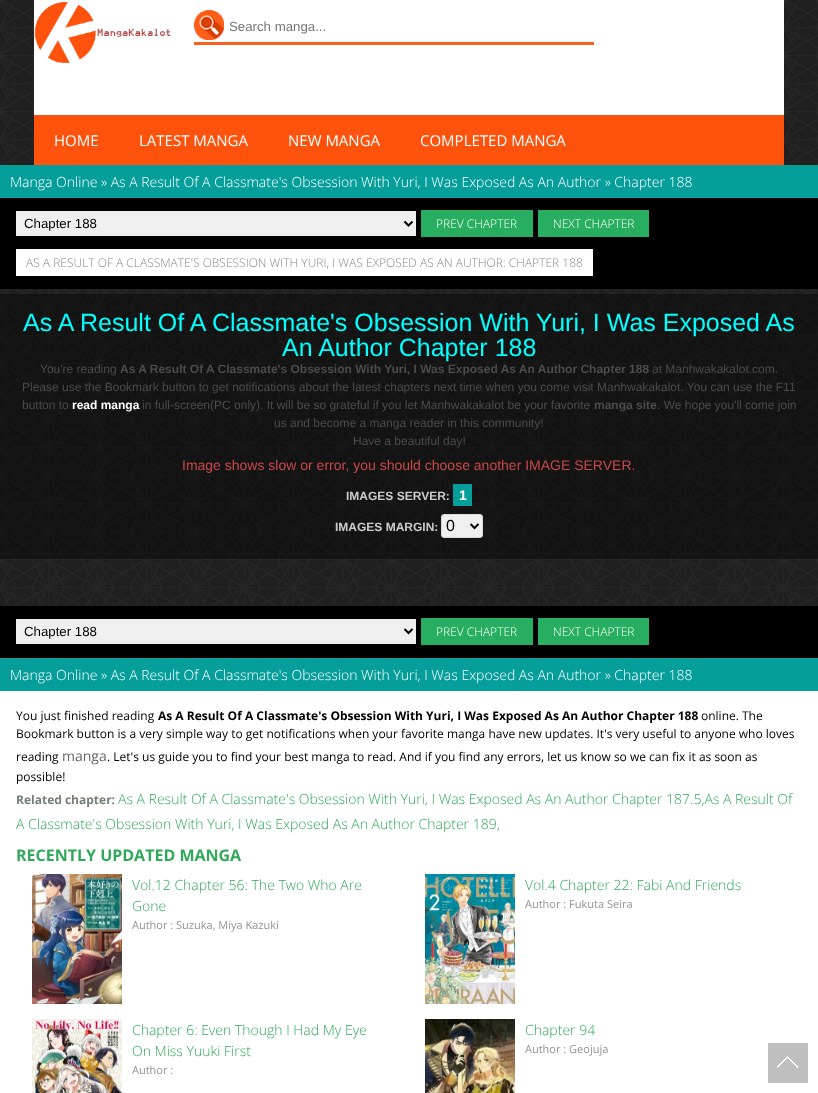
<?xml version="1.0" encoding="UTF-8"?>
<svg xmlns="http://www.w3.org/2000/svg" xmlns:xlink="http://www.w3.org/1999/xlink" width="818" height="1093">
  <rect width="100%" height="100%" fill="#ffffff" />
  <image x="0" y="0" width="818" height="606" xlink:href="image1.png" />
  <rect x="34" width="750" height="115" fill="#ffffff" />
  <image x="34" y="2" width="137" height="61" xlink:href="image2.png" />
  <image x="194" y="10" width="30" height="30" xlink:href="image3.png" />
  <rect x="194" y="42" width="400" height="3" fill="#fd5e1e" />
  <rect x="34" y="115" width="750" height="50" fill="#ff530d" />
  <rect y="165" width="818" height="33" fill="#059e9a" />
  <rect y="198" width="818" height="91" fill="#000000" />
  <rect x="16" y="211" width="400" height="25" fill="#efefef" />
  <path d="M 404.5 221.5 l 4 4 l 4 -4" fill="none" stroke="#000000" stroke-width="2" />
  <rect x="421" y="210" width="112" height="27" fill="#27ae60" />
  <rect x="538" y="210" width="111" height="27" fill="#27ae60" />
  <rect x="16" y="249" width="577" height="27" fill="#ffffff" />
  <rect y="294" width="818" height="265" fill="#000000" fill-opacity="0.39" />
  <rect x="453" y="484" width="19" height="22" fill="#059e9a" />
  <rect x="441.5" y="514.5" width="41" height="23" rx="2.5" fill="#efefef" stroke="#dadada" />
  <path d="M 470.5 524 l 4 4 l 4 -4" fill="none" stroke="#000000" stroke-width="2" />
  <rect y="606" width="818" height="52" fill="#000000" />
  <rect x="16" y="619" width="400" height="25" fill="#efefef" />
  <path d="M 404.5 629 l 4 4 l 4 -4" fill="none" stroke="#000000" stroke-width="2" />
  <rect x="421" y="618" width="112" height="27" fill="#27ae60" />
  <rect x="538" y="618" width="111" height="27" fill="#27ae60" />
  <rect y="658" width="818" height="33" fill="#059e9a" />
  <image x="32" y="874" width="90" height="130" xlink:href="image4.png" />
  <image x="425" y="874" width="90" height="130" xlink:href="image5.png" />
  <image x="32" y="1019" width="90" height="74" xlink:href="image6.png" />
  <image x="425" y="1019" width="90" height="74" xlink:href="image7.png" />
  <image x="768" y="1043" width="40" height="40" xlink:href="image8.png" />
  <text x="229" y="31" style="font-family: Liberation Sans; font-size: 13.25px; fill: #757575">Search manga...</text>
  <text x="54" y="146" style="font-family: Open Sans; font-size: 15px; fill: #ffffff">HOME</text>
  <text x="139" y="146" style="font-family: Open Sans; font-size: 15px; fill: #ffffff">LATEST MANGA</text>
  <text x="288" y="146" style="font-family: Open Sans; font-size: 15px; fill: #ffffff">NEW MANGA</text>
  <text x="420" y="146" style="font-family: Open Sans; font-size: 15px; fill: #ffffff">COMPLETED MANGA</text>
  <text x="10" y="187" style="font-family: Open Sans; font-size: 14px; font-weight: 300; fill: #ffffff">Manga Online » As A Result Of A Classmate's Obsession With Yuri, I Was Exposed As An Author » Chapter 188</text>
  <text x="24" y="228" style="font-family: Liberation Sans; font-size: 13.25px; fill: #000000">Chapter 188</text>
  <text x="436" y="228" style="font-family: Open Sans; font-size: 12px; font-weight: 300; fill: #ffffff">PREV CHAPTER</text>
  <text x="553" y="228" style="font-family: Open Sans; font-size: 12px; font-weight: 300; fill: #ffffff">NEXT CHAPTER</text>
  <text x="26" y="267" style="font-family: Open Sans; font-size: 12px; font-weight: 300; fill: #888888">AS A RESULT OF A CLASSMATE'S OBSESSION WITH YURI, I WAS EXPOSED AS AN AUTHOR: CHAPTER 188</text>
  <text x="23" y="331" style="font-family: Liberation Sans; font-size: 25px; fill: #00ffff">As A Result Of A Classmate's Obsession With Yuri, I Was Exposed As</text>
  <text x="282" y="356" style="font-family: Liberation Sans; font-size: 25px; fill: #00ffff">An Author Chapter 188</text>
  <text x="40" y="373" style="font-family: Liberation Sans; font-size: 12px; fill: #4c4c4c">You're reading</text>
  <text x="120" y="373" style="font-family: Liberation Sans; font-size: 12px; font-weight: bold; fill: #4c4c4c">As A Result Of A Classmate's Obsession With Yuri, I Was Exposed As An Author Chapter 188</text>
  <text x="652" y="373" style="font-family: Liberation Sans; font-size: 12px; fill: #4c4c4c">at Manhwakakalot.com.</text>
  <text x="22" y="391" style="font-family: Liberation Sans; font-size: 12px; fill: #4c4c4c">Please use the Bookmark button to get notifications about the latest chapters next time when you come visit Manhwakakalot. You can use the F11</text>
  <text x="22" y="409" style="font-family: Liberation Sans; font-size: 12px; fill: #4c4c4c">button to</text>
  <text x="72" y="409" style="font-family: Liberation Sans; font-size: 12px; font-weight: bold; fill: #ffffff">read manga</text>
  <text x="142" y="409" style="font-family: Liberation Sans; font-size: 12px; fill: #4c4c4c">in full-screen(PC only). It will be so grateful if you let Manhwakakalot be your favorite</text>
  <text x="594" y="409" style="font-family: Liberation Sans; font-size: 12px; font-weight: bold; fill: #4c4c4c">manga site</text>
  <text x="657" y="409" style="font-family: Liberation Sans; font-size: 12px; fill: #4c4c4c">. We hope you'll come join</text>
  <text x="274" y="427" style="font-family: Liberation Sans; font-size: 12px; fill: #4c4c4c">us and become a manga reader in this community!</text>
  <text x="353" y="445" style="font-family: Liberation Sans; font-size: 12px; fill: #4c4c4c">Have a beautiful day!</text>
  <text x="182" y="470" style="font-family: Liberation Sans; font-size: 14px; fill: #ca4848">Image shows slow or error, you should choose another IMAGE SERVER.</text>
  <text x="346" y="500" style="font-family: Liberation Sans; font-size: 12px; font-weight: bold; fill: #cccccc">IMAGES SERVER:</text>
  <text x="459" y="500" style="font-family: Liberation Sans; font-size: 14px; font-weight: bold; fill: #ffffff">1</text>
  <text x="335" y="531" style="font-family: Liberation Sans; font-size: 12px; font-weight: bold; fill: #cccccc">IMAGES MARGIN:</text>
  <text x="446" y="531" style="font-family: Liberation Sans; font-size: 16px; fill: #000000">0</text>
  <text x="24" y="636" style="font-family: Liberation Sans; font-size: 13.25px; fill: #000000">Chapter 188</text>
  <text x="436" y="636" style="font-family: Open Sans; font-size: 12px; font-weight: 300; fill: #ffffff">PREV CHAPTER</text>
  <text x="553" y="636" style="font-family: Open Sans; font-size: 12px; font-weight: 300; fill: #ffffff">NEXT CHAPTER</text>
  <text x="10" y="680" style="font-family: Open Sans; font-size: 14px; font-weight: 300; fill: #ffffff">Manga Online » As A Result Of A Classmate's Obsession With Yuri, I Was Exposed As An Author » Chapter 188</text>
  <text x="16" y="720" style="font-family: Open Sans; font-size: 12px; fill: #000000">You just finished reading</text>
  <text x="158" y="720" style="font-family: Open Sans; font-size: 12px; font-weight: bold; fill: #000000">As A Result Of A Classmate's Obsession With Yuri, I Was Exposed As An Author Chapter 188</text>
  <text x="701" y="720" style="font-family: Open Sans; font-size: 12px; fill: #000000">online. The</text>
  <text x="16" y="738" style="font-family: Open Sans; font-size: 12px; fill: #000000">Bookmark button is a very simple way to get notifications when your favorite manga have new updates. It's very useful to anyone who loves</text>
  <text x="16" y="761" style="font-family: Open Sans; font-size: 12px; fill: #000000">reading</text>
  <text x="62" y="761" style="font-family: Open Sans; font-size: 14px; fill: #666666">manga</text>
  <text x="107" y="761" style="font-family: Open Sans; font-size: 12px; fill: #000000">. Let's us guide you to find your best manga to read. And if you find any errors, let us know so we can fix it as soon as</text>
  <text x="16" y="781" style="font-family: Open Sans; font-size: 12px; fill: #000000">possible!</text>
  <text x="16" y="804" style="font-family: Open Sans; font-size: 12px; font-weight: bold; fill: #748076">Related chapter:</text>
  <text x="118" y="804" style="font-family: Open Sans; font-size: 14px; font-weight: 300; fill: #31a95b">As A Result Of A Classmate's Obsession With Yuri, I Was Exposed As An Author Chapter 187.5,As A Result Of</text>
  <text x="16" y="829" style="font-family: Open Sans; font-size: 14px; font-weight: 300; fill: #31a95b">A Classmate's Obsession With Yuri, I Was Exposed As An Author Chapter 189,</text>
  <text x="16" y="861" style="font-family: Open Sans; font-size: 16px; font-weight: bold; fill: #31a95b">RECENTLY UPDATED MANGA</text>
  <text x="132" y="890" style="font-family: Open Sans; font-size: 14px; font-weight: 300; fill: #31a95b">Vol.12 Chapter 56: The Two Who Are</text>
  <text x="132" y="911" style="font-family: Open Sans; font-size: 14px; font-weight: 300; fill: #31a95b">Gone</text>
  <text x="132" y="929" style="font-family: Open Sans; font-size: 11px; fill: #939393">Author : Suzuka, Miya Kazuki</text>
  <text x="525" y="890" style="font-family: Open Sans; font-size: 14px; font-weight: 300; fill: #31a95b">Vol.4 Chapter 22: Fabi And Friends</text>
  <text x="525" y="908" style="font-family: Open Sans; font-size: 11px; fill: #939393">Author : Fukuta Seira</text>
  <text x="132" y="1035" style="font-family: Open Sans; font-size: 14px; font-weight: 300; fill: #31a95b">Chapter 6: Even Though I Had My Eye</text>
  <text x="132" y="1056" style="font-family: Open Sans; font-size: 14px; font-weight: 300; fill: #31a95b">On Miss Yuuki First</text>
  <text x="132" y="1074" style="font-family: Open Sans; font-size: 11px; fill: #939393">Author :</text>
  <text x="525" y="1035" style="font-family: Open Sans; font-size: 14px; font-weight: 300; fill: #31a95b">Chapter 94</text>
  <text x="525" y="1053" style="font-family: Open Sans; font-size: 11px; fill: #939393">Author : Geojuja</text>
</svg>
